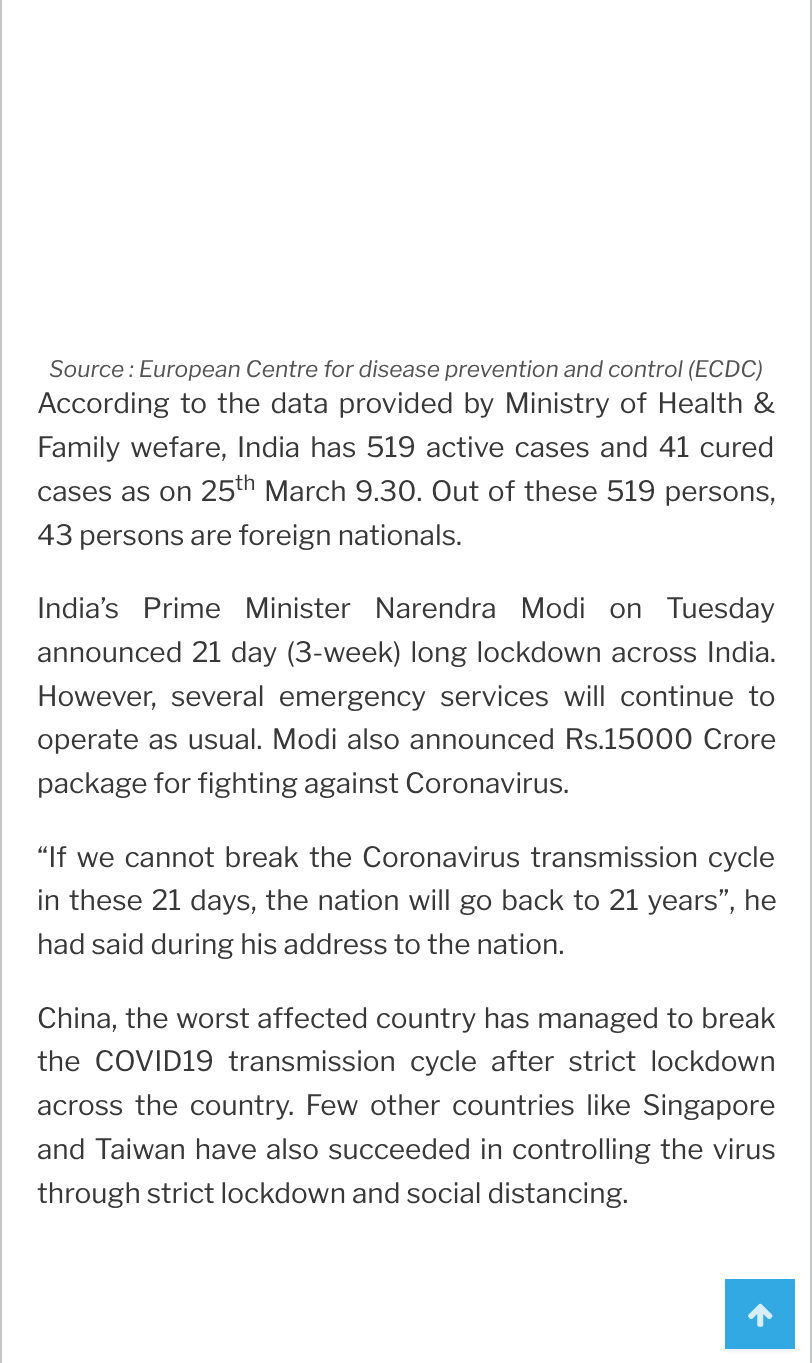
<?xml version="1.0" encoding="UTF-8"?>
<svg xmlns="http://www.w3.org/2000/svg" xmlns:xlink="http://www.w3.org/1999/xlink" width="812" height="1363">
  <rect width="100%" height="100%" fill="#ffffff" />
  <rect x="810" width="2" height="1363" fill="#c4c6c8" />
  <rect width="2" height="1363" fill="#c4c6c8" />
  <rect x="725" y="1281" width="70" height="70" fill="#333333" fill-opacity="0.09" filter="blur(2px)" />
  <rect x="725" y="1279" width="70" height="70" fill="#33a9e4" />
  <image x="748" y="1303" width="25" height="24" xlink:href="image1.png" />
  <text x="49" y="377" style="font-family: Libre Franklin; font-size: 22.75px; font-weight: 100; font-style: italic; fill: #545454">Source : European Centre for disease prevention and control (ECDC)</text>
  <text x="37" y="413" word-spacing="4" style="font-family: Libre Franklin; font-size: 28px; fill: #383838">According to the data provided by Ministry of Health &amp;</text>
  <text x="37" y="457" word-spacing="4" style="font-family: Libre Franklin; font-size: 28px; fill: #383838">Family wefare, India has 519 active cases and 41 cured</text>
  <text x="37" y="501" word-spacing="2.5" style="font-family: Libre Franklin; font-size: 28px; fill: #383838">cases as on 25</text>
  <text x="235" y="490" style="font-family: Libre Franklin; font-size: 21px; fill: #383838">th</text>
  <text x="264" y="501" word-spacing="2.5" style="font-family: Libre Franklin; font-size: 28px; fill: #383838">March 9.30. Out of these 519 persons,</text>
  <text x="37" y="545" style="font-family: Libre Franklin; font-size: 28px; fill: #383838">43 persons are foreign nationals.</text>
  <text x="37" y="618" word-spacing="17.5" style="font-family: Libre Franklin; font-size: 28px; fill: #383838">India’s Prime Minister Narendra Modi on Tuesday</text>
  <text x="37" y="662" word-spacing="3.25" style="font-family: Libre Franklin; font-size: 28px; fill: #383838">announced 21 day (3-week) long lockdown across India.</text>
  <text x="37" y="706" word-spacing="8.25" style="font-family: Libre Franklin; font-size: 28px; fill: #383838">However, several emergency services will continue to</text>
  <text x="37" y="749" word-spacing="3.5" style="font-family: Libre Franklin; font-size: 28px; fill: #383838">operate as usual. Modi also announced Rs.15000 Crore</text>
  <text x="37" y="793" style="font-family: Libre Franklin; font-size: 28px; fill: #383838">package for fighting against Coronavirus.</text>
  <text x="37" y="867" word-spacing="3.75" style="font-family: Libre Franklin; font-size: 28px; fill: #383838">“If we cannot break the Coronavirus transmission cycle</text>
  <text x="37" y="910" word-spacing="2.75" style="font-family: Libre Franklin; font-size: 28px; fill: #383838">in these 21 days, the nation will go back to 21 years”, he</text>
  <text x="37" y="954" style="font-family: Libre Franklin; font-size: 28px; fill: #383838">had said during his address to the nation.</text>
  <text x="37" y="1028" word-spacing="1.5" style="font-family: Libre Franklin; font-size: 28px; fill: #383838">China, the worst affected country has managed to break</text>
  <text x="37" y="1071" word-spacing="8" style="font-family: Libre Franklin; font-size: 28px; fill: #383838">the COVID19 transmission cycle after strict lockdown</text>
  <text x="37" y="1115" word-spacing="5.5" style="font-family: Libre Franklin; font-size: 28px; fill: #383838">across the country. Few other countries like Singapore</text>
  <text x="37" y="1159" word-spacing="3" style="font-family: Libre Franklin; font-size: 28px; fill: #383838">and Taiwan have also succeeded in controlling the virus</text>
  <text x="37" y="1203" style="font-family: Libre Franklin; font-size: 28px; fill: #383838">through strict lockdown and social distancing.</text>
</svg>
